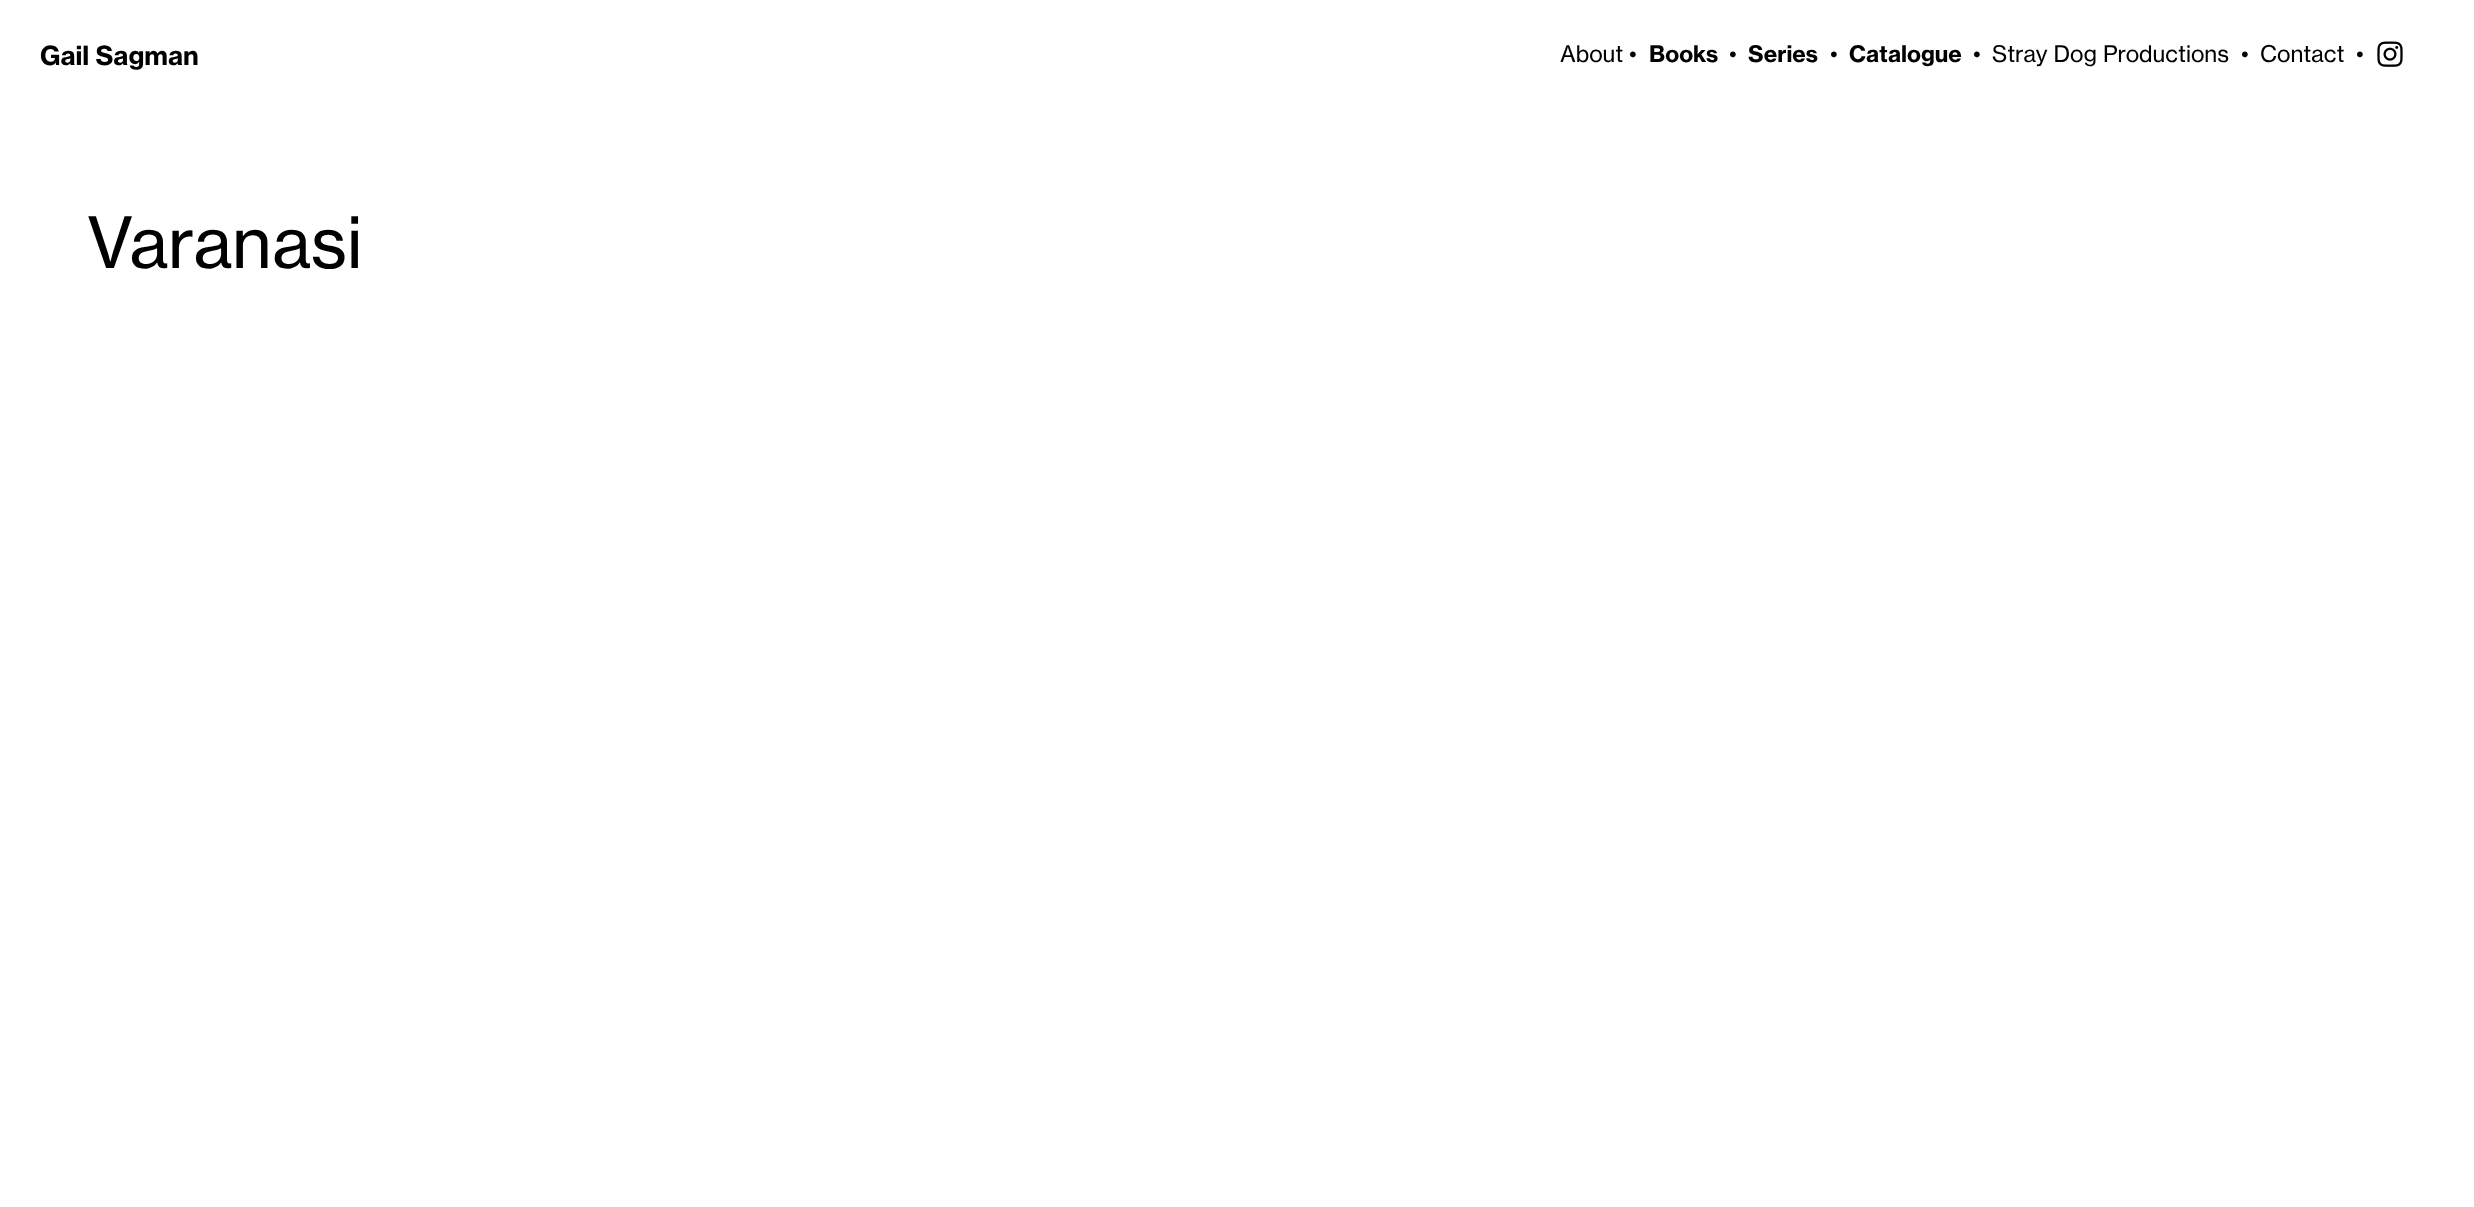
<?xml version="1.0" encoding="UTF-8"?>
<svg xmlns="http://www.w3.org/2000/svg" xmlns:xlink="http://www.w3.org/1999/xlink" width="2474" height="1207">
  <rect width="100%" height="100%" fill="#ffffff" />
  <image x="2377" y="41" width="26" height="26" xlink:href="image1.png" />
  <text x="40" y="65" style="font-family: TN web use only; font-size: 26px; font-weight: bold; fill: #000000">Gail Sagman</text>
  <text x="1560" y="62" style="font-family: TN web use only; font-size: 22.6px; fill: #000000">About</text>
  <text x="1629" y="62" style="font-family: TN web use only; font-size: 22.6px; fill: #000000">•</text>
  <text x="1649" y="62" style="font-family: TN web use only; font-size: 22.6px; font-weight: bold; fill: #000000">Books</text>
  <text x="1729" y="62" style="font-family: TN web use only; font-size: 22.6px; fill: #000000">•</text>
  <text x="1748" y="62" style="font-family: TN web use only; font-size: 22.6px; font-weight: bold; fill: #000000">Series</text>
  <text x="1830" y="62" style="font-family: TN web use only; font-size: 22.6px; fill: #000000">•</text>
  <text x="1849" y="62" style="font-family: TN web use only; font-size: 22.6px; font-weight: bold; fill: #000000">Catalogue</text>
  <text x="1973" y="62" style="font-family: TN web use only; font-size: 22.6px; fill: #000000">•</text>
  <text x="1992" y="62" style="font-family: TN web use only; font-size: 22.6px; fill: #000000" xml:space="preserve">Stray Dog Productions  •</text>
  <text x="2260" y="62" style="font-family: TN web use only; font-size: 22.6px; fill: #000000">Contact</text>
  <text x="2356" y="62" style="font-family: TN web use only; font-size: 22.6px; fill: #000000">•</text>
  <text x="87" y="268" style="font-family: TN web use only; font-size: 69.5px; fill: #000000">Varanasi</text>
</svg>
